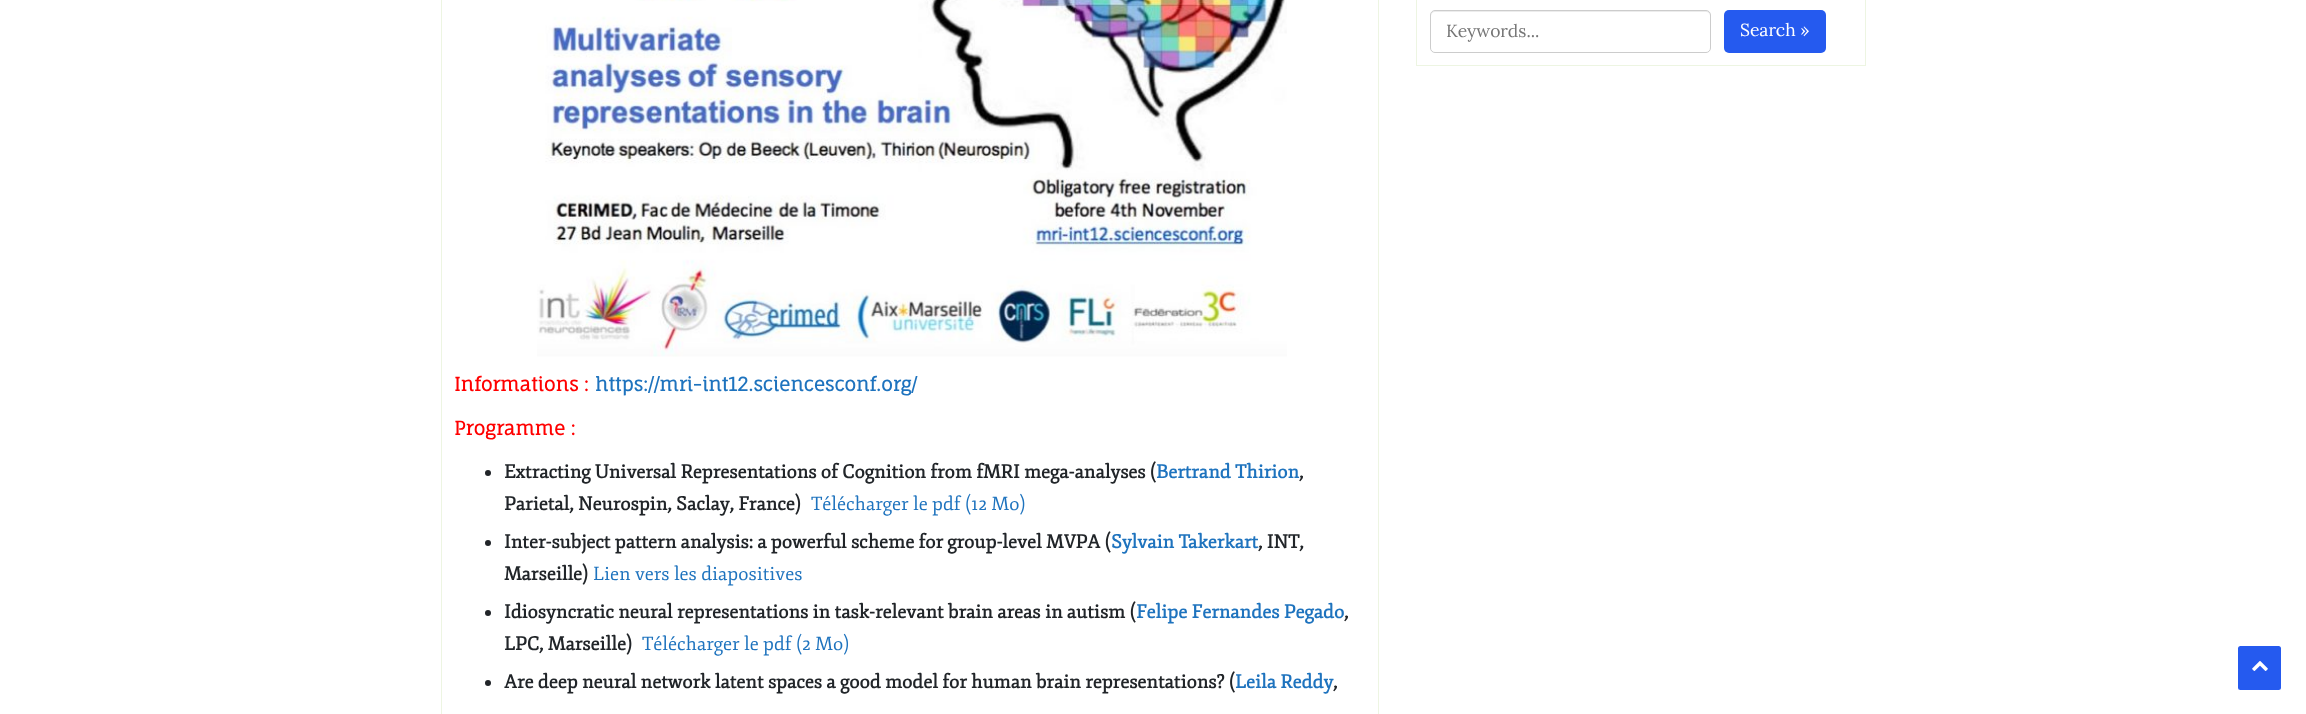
<?xml version="1.0" encoding="UTF-8"?>
<svg xmlns="http://www.w3.org/2000/svg" xmlns:xlink="http://www.w3.org/1999/xlink" width="2306" height="714">
  <rect width="100%" height="100%" fill="#ffffff" />
  <rect x="1416.5" y="-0.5" width="449" height="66" fill="none" stroke="#edf5e2" />
  <path d="M 1435 12 h 271 c 2 0 4 2 4 4 c 0 -3 -1 -5 -4 -5 h -271 c -3 0 -4 2 -4 5 c 0 -2 2 -4 4 -4 z" fill="#ececec" />
  <rect x="1430.5" y="10.5" width="280" height="42" rx="4.5" fill="none" stroke="#cccccc" />
  <rect x="1724" y="10" width="102" height="43" rx="5" fill="#255aef" />
  <rect x="441.5" y="-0.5" width="937" height="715" fill="none" stroke="#edf5e2" />
  <image x="537" y="0" width="750" height="357" xlink:href="image1.png" />
  <circle cx="488" cy="473" r="3" fill="#212529" />
  <circle cx="488" cy="543" r="3" fill="#212529" />
  <circle cx="488" cy="613" r="3" fill="#212529" />
  <circle cx="488" cy="683" r="3" fill="#212529" />
  <rect x="2238" y="646" width="43" height="44" rx="2.5" fill="#255aef" />
  <image x="2252" y="661" width="16" height="10" xlink:href="image2.png" />
  <text x="1446" y="37" style="font-family: Lora; font-size: 17.5px; fill: #757575">Keywords...</text>
  <text x="1740" y="36" style="font-family: Lora; font-size: 17.5px; fill: #ffffff">Search »</text>
  <text x="454" y="391" style="font-family: Fauna One; font-size: 18.75px; font-weight: bold; fill: #ff0000">Informations :</text>
  <text x="595" y="391" style="font-family: Fauna One; font-size: 18.75px; font-weight: bold; fill: #1e73be">https://mri-int12.sciencesconf.org/</text>
  <text x="454" y="435" style="font-family: Fauna One; font-size: 18.75px; font-weight: bold; fill: #ff0000">Programme :</text>
  <text x="504" y="478" style="font-family: Fjord; font-size: 18.75px; font-weight: bold; fill: #212529">Extracting Universal Representations of Cognition from fMRI mega-analyses (</text>
  <text x="1156" y="478" style="font-family: Fjord; font-size: 18.75px; font-weight: bold; fill: #1e73be">Bertrand Thirion</text>
  <text x="1299" y="478" style="font-family: Fjord; font-size: 18.75px; font-weight: bold; fill: #212529">,</text>
  <text x="504" y="510" style="font-family: Fjord; font-size: 18.75px; font-weight: bold; fill: #212529">Parietal, Neurospin, Saclay, France)</text>
  <text x="811" y="510" style="font-family: Fjord; font-size: 18.75px; fill: #1e73be">Télécharger le pdf (12 Mo)</text>
  <text x="504" y="548" style="font-family: Fjord; font-size: 18.75px; font-weight: bold; fill: #212529">Inter-subject pattern analysis: a powerful scheme for group-level MVPA (</text>
  <text x="1111" y="548" style="font-family: Fjord; font-size: 18.75px; font-weight: bold; fill: #1e73be">Sylvain Takerkart</text>
  <text x="1258" y="548" style="font-family: Fjord; font-size: 18.75px; font-weight: bold; fill: #212529">, INT,</text>
  <text x="504" y="580" style="font-family: Fjord; font-size: 18.75px; font-weight: bold; fill: #212529">Marseille)</text>
  <text x="593" y="580" style="font-family: Fjord; font-size: 18.75px; fill: #1e73be">Lien vers les diapositives</text>
  <text x="504" y="618" style="font-family: Fjord; font-size: 18.75px; font-weight: bold; fill: #212529">Idiosyncratic neural representations in task-relevant brain areas in autism (</text>
  <text x="1136" y="618" style="font-family: Fjord; font-size: 18.75px; font-weight: bold; fill: #1e73be">Felipe Fernandes Pegado</text>
  <text x="1344" y="618" style="font-family: Fjord; font-size: 18.75px; font-weight: bold; fill: #212529">,</text>
  <text x="504" y="650" style="font-family: Fjord; font-size: 18.75px; font-weight: bold; fill: #212529">LPC, Marseille)</text>
  <text x="642" y="650" style="font-family: Fjord; font-size: 18.75px; fill: #1e73be">Télécharger le pdf (2 Mo)</text>
  <text x="504" y="688" style="font-family: Fjord; font-size: 18.75px; font-weight: bold; fill: #212529">Are deep neural network latent spaces a good model for human brain representations? (</text>
  <text x="1235" y="688" style="font-family: Fjord; font-size: 18.75px; font-weight: bold; fill: #1e73be">Leila Reddy</text>
  <text x="1333" y="688" style="font-family: Fjord; font-size: 18.75px; font-weight: bold; fill: #212529">,</text>
</svg>
